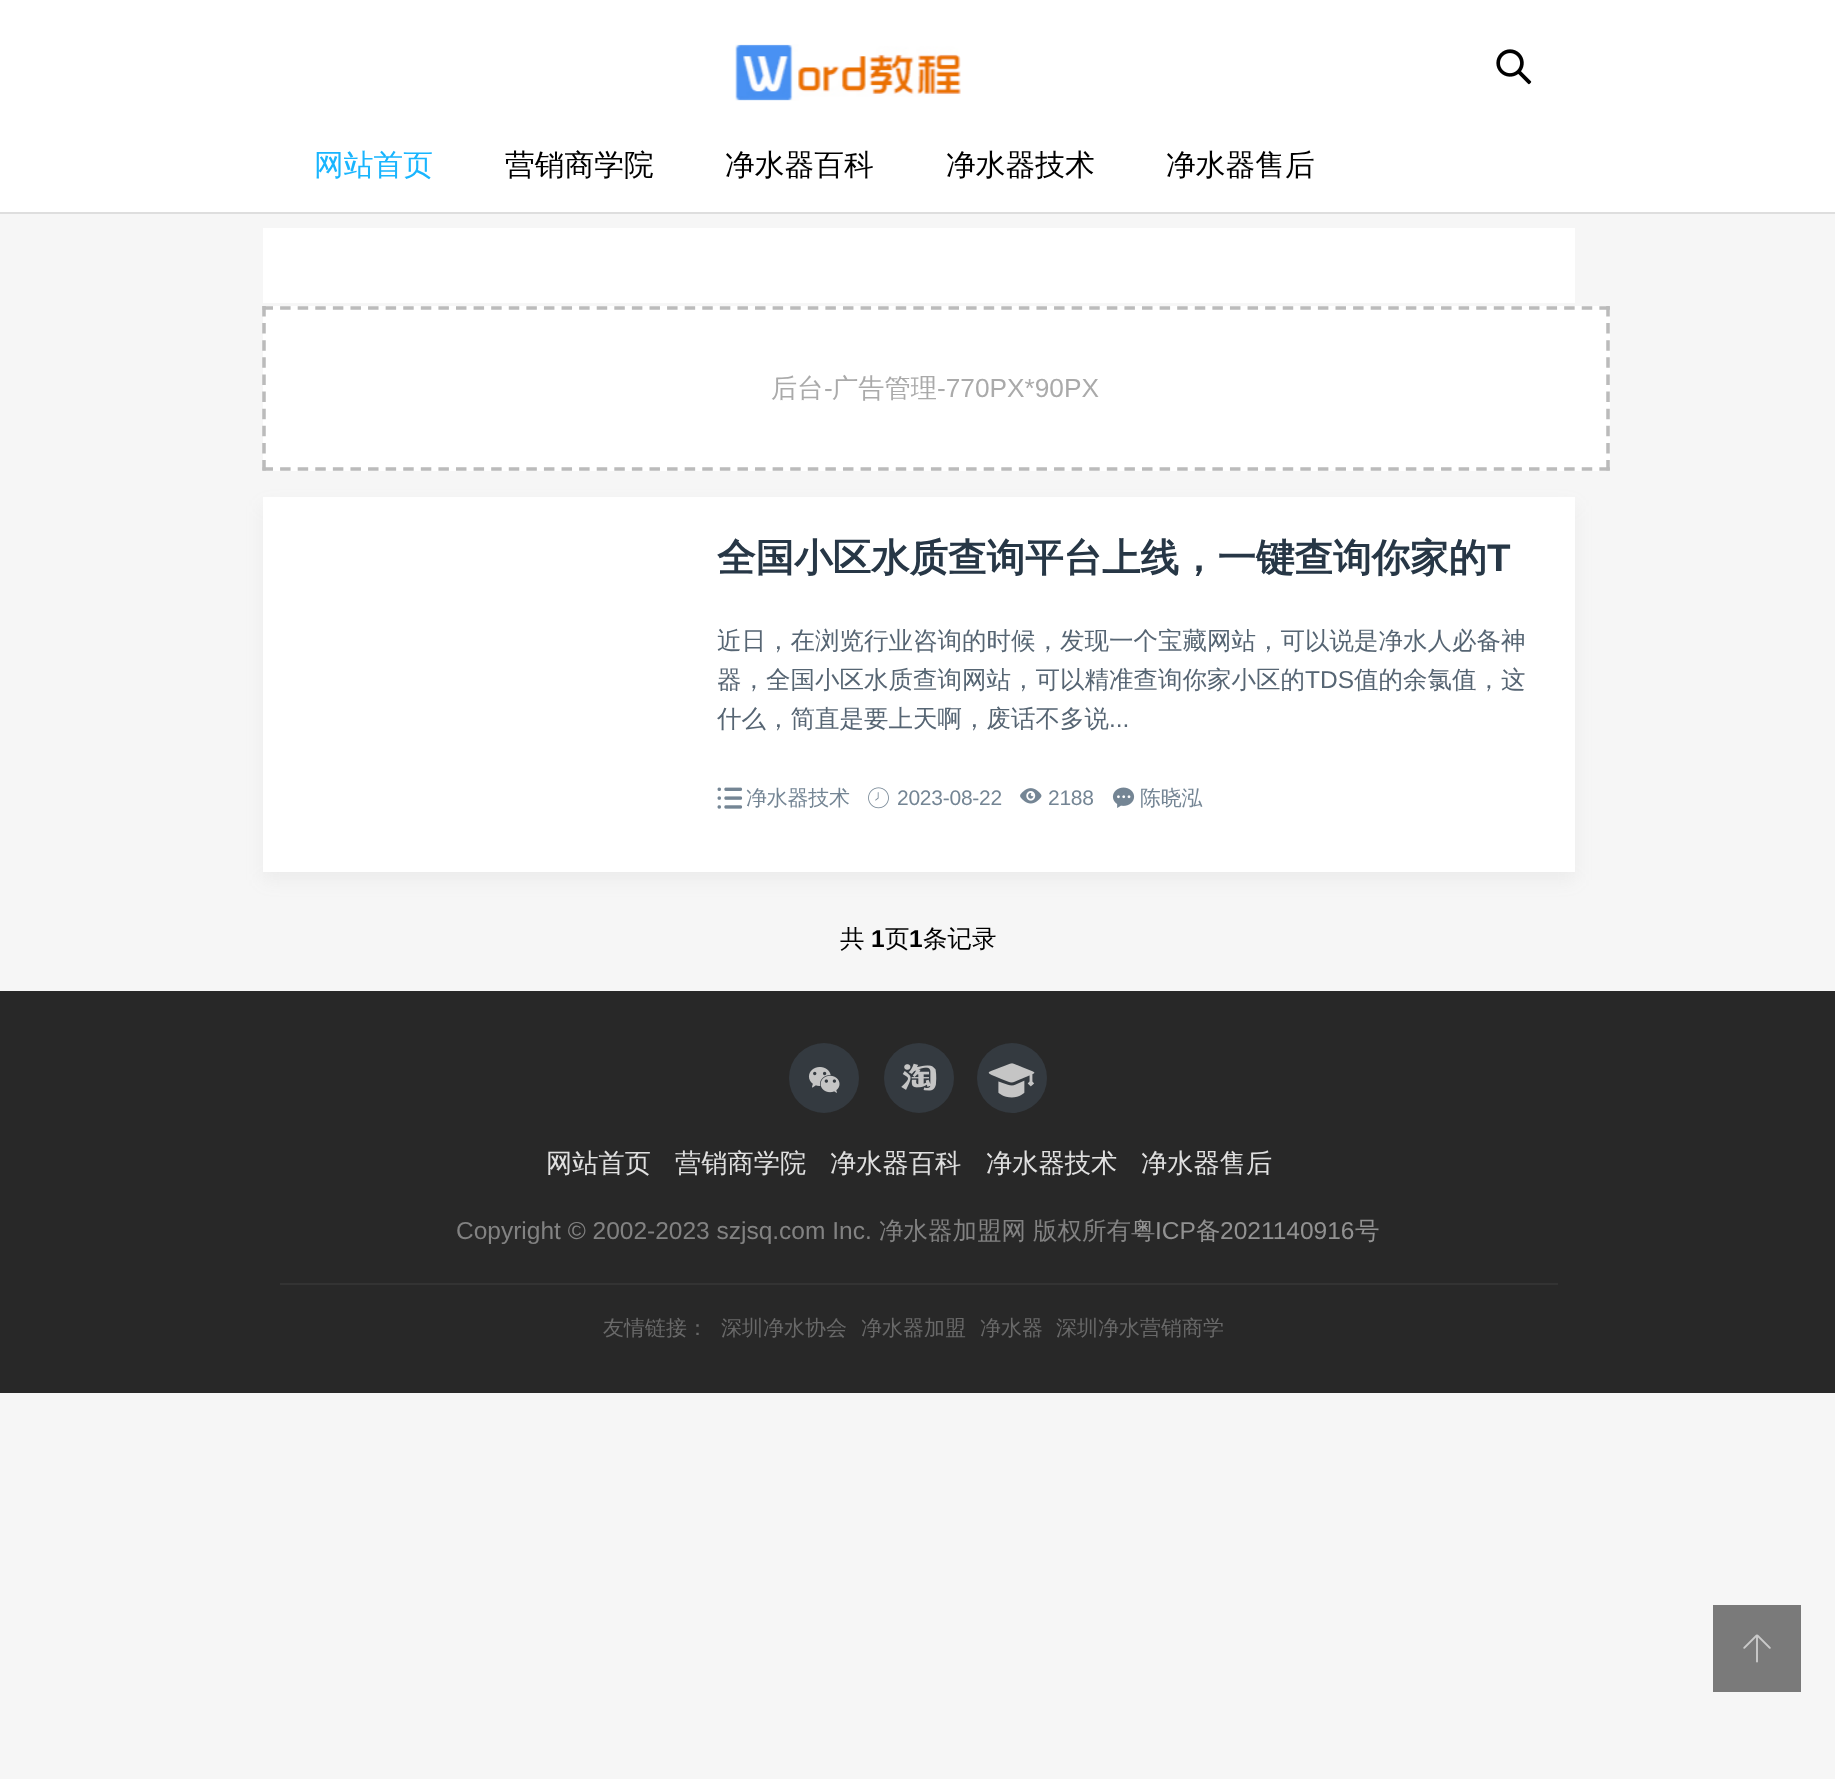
<?xml version="1.0" encoding="UTF-8"?>
<svg xmlns="http://www.w3.org/2000/svg" xmlns:xlink="http://www.w3.org/1999/xlink" width="1835" height="1779">
  <rect width="100%" height="100%" fill="#f6f6f6" />
  <rect width="1835" height="212" fill="#ffffff" />
  <rect y="212" width="1835" height="2" fill="#dedede" />
  <image x="735" y="44" width="226" height="57" xlink:href="image1.png" />
  <image x="1496" y="49" width="36" height="36" xlink:href="image2.png" />
  <rect x="263" y="228" width="1312" height="75" fill="#ffffff" />
  <rect x="263" y="306" width="1347" height="165" fill="#ffffff" />
  <path d="M 262.5 308 h 1347.5" fill="none" stroke="#bbbbbb" stroke-width="3.5" stroke-dasharray="10.5 7.09" />
  <path d="M 1608 306 v 165" fill="none" stroke="#bbbbbb" stroke-width="3.5" stroke-dasharray="10.5 6.61" />
  <path d="M 262.5 469 h 1347.5" fill="none" stroke="#bbbbbb" stroke-width="3.5" stroke-dasharray="10.5 7.09" />
  <path d="M 264 306 v 165" fill="none" stroke="#bbbbbb" stroke-width="3.5" stroke-dasharray="10.5 6.61" />
  <rect x="263" y="506" width="1312" height="374" fill="#929292" fill-opacity="0.1" filter="blur(9px)" />
  <rect x="263" y="497" width="1312" height="375" fill="#ffffff" />
  <image x="717" y="787" width="26" height="22" xlink:href="image3.png" />
  <image x="868" y="787" width="21" height="22" xlink:href="image4.png" />
  <image x="1020" y="788" width="22" height="16" xlink:href="image5.png" />
  <image x="1112" y="787" width="23" height="21" xlink:href="image6.png" />
  <rect y="991" width="1835" height="402" fill="#282828" />
  <circle cx="824" cy="1078" r="35" fill="#343a40" />
  <image x="808" y="1067" width="32" height="26" xlink:href="image7.png" />
  <circle cx="919" cy="1078" r="35" fill="#343a40" />
  <image x="901" y="1063" width="36" height="28" xlink:href="image8.png" />
  <circle cx="1012" cy="1078" r="35" fill="#343a40" />
  <image x="988" y="1063" width="47" height="35" xlink:href="image9.png" />
  <rect x="280" y="1283" width="1278" height="2" fill="#333333" />
  <rect x="1713" y="1605" width="88" height="87" fill="#7a7a7a" />
  <image x="1743" y="1634" width="28" height="29" xlink:href="image10.png" />
  <text x="314" y="175" style="font-family: WenQuanYi Zen Hei; font-size: 29.75px; font-weight: 500; fill: #19b5fe">网站首页</text>
  <text x="505" y="175" style="font-family: WenQuanYi Zen Hei; font-size: 29.75px; font-weight: 500; fill: #000000">营销商学院</text>
  <text x="725" y="175" style="font-family: WenQuanYi Zen Hei; font-size: 29.75px; font-weight: 500; fill: #000000">净水器百科</text>
  <text x="946" y="175" style="font-family: WenQuanYi Zen Hei; font-size: 29.75px; font-weight: 500; fill: #000000">净水器技术</text>
  <text x="1166" y="175" style="font-family: WenQuanYi Zen Hei; font-size: 29.75px; font-weight: 500; fill: #000000">净水器售后</text>
  <text x="771" y="397" style="font-family: WenQuanYi Zen Hei; font-size: 26.25px; font-weight: 500; fill: #aaaaaa">后台</text>
  <text x="824" y="397" style="font-family: Liberation Sans; font-size: 26.25px; fill: #aaaaaa">-</text>
  <text x="832" y="397" style="font-family: WenQuanYi Zen Hei; font-size: 26.25px; font-weight: 500; fill: #aaaaaa">广告管理</text>
  <text x="937" y="397" style="font-family: Liberation Sans; font-size: 26.25px; fill: #aaaaaa">-770PX*90PX</text>
  <text x="717" y="571" style="font-family: WenQuanYi Zen Hei; font-size: 38.5px; font-weight: bold; fill: #273746">全国小区水质查询平台上线，一键查询你家的</text>
  <text x="1487" y="571" style="font-family: Liberation Sans; font-size: 38.5px; font-weight: bold; fill: #273746">T</text>
  <text x="717" y="649" style="font-family: WenQuanYi Zen Hei; font-size: 24.5px; font-weight: 500; fill: #566573">近日，在浏览行业咨询的时候，发现一个宝藏网站，可以说是净水人必备神</text>
  <text x="717" y="688" style="font-family: WenQuanYi Zen Hei; font-size: 24.5px; font-weight: 500; fill: #566573">器，全国小区水质查询网站，可以精准查询你家小区的</text>
  <text x="1305" y="688" style="font-family: Liberation Sans; font-size: 24.5px; fill: #566573">TDS</text>
  <text x="1354" y="688" style="font-family: WenQuanYi Zen Hei; font-size: 24.5px; font-weight: 500; fill: #566573">值的余氯值，这</text>
  <text x="717" y="727" style="font-family: WenQuanYi Zen Hei; font-size: 24.5px; font-weight: 500; fill: #566573">什么，简直是要上天啊，废话不多说</text>
  <text x="1109" y="727" style="font-family: Liberation Sans; font-size: 24.5px; fill: #566573">...</text>
  <text x="746" y="805" style="font-family: WenQuanYi Zen Hei; font-size: 21px; font-weight: 500; letter-spacing: -0.25px; fill: #748594">净水器技术</text>
  <text x="897" y="805" style="font-family: Liberation Sans; font-size: 21px; letter-spacing: -0.25px; fill: #748594">2023-08-22</text>
  <text x="1048" y="805" style="font-family: Liberation Sans; font-size: 21px; letter-spacing: -0.25px; fill: #748594">2188</text>
  <text x="1140" y="805" style="font-family: WenQuanYi Zen Hei; font-size: 21px; font-weight: 500; letter-spacing: -0.25px; fill: #748594">陈晓泓</text>
  <text x="840" y="947" style="font-family: WenQuanYi Zen Hei; font-size: 24.5px; font-weight: 500; fill: #000000">共</text>
  <text x="871" y="947" style="font-family: Liberation Sans; font-size: 24.5px; font-weight: bold; fill: #000000">1</text>
  <text x="885" y="947" style="font-family: WenQuanYi Zen Hei; font-size: 24.5px; font-weight: 500; fill: #000000">页</text>
  <text x="909" y="947" style="font-family: Liberation Sans; font-size: 24.5px; font-weight: bold; fill: #000000">1</text>
  <text x="923" y="947" style="font-family: WenQuanYi Zen Hei; font-size: 24.5px; font-weight: 500; fill: #000000">条记录</text>
  <text x="546" y="1172" style="font-family: WenQuanYi Zen Hei; font-size: 26.25px; font-weight: 500; fill: #e0e0e0">网站首页</text>
  <text x="675" y="1172" style="font-family: WenQuanYi Zen Hei; font-size: 26.25px; font-weight: 500; fill: #e0e0e0">营销商学院</text>
  <text x="830" y="1172" style="font-family: WenQuanYi Zen Hei; font-size: 26.25px; font-weight: 500; fill: #e0e0e0">净水器百科</text>
  <text x="986" y="1172" style="font-family: WenQuanYi Zen Hei; font-size: 26.25px; font-weight: 500; fill: #e0e0e0">净水器技术</text>
  <text x="1141" y="1172" style="font-family: WenQuanYi Zen Hei; font-size: 26.25px; font-weight: 500; fill: #e0e0e0">净水器售后</text>
  <text x="456" y="1239" style="font-family: Liberation Sans; font-size: 24.5px; fill: #828282">Copyright © 2002-2023 szjsq.com Inc.</text>
  <text x="879" y="1239" style="font-family: WenQuanYi Zen Hei; font-size: 24.5px; font-weight: 500; fill: #828282">净水器加盟网</text>
  <text x="1033" y="1239" style="font-family: WenQuanYi Zen Hei; font-size: 24.5px; font-weight: 500; fill: #828282">版权所有</text>
  <text x="1131" y="1239" style="font-family: WenQuanYi Zen Hei; font-size: 24.5px; font-weight: 500; fill: #929292">粤</text>
  <text x="1155" y="1239" style="font-family: Liberation Sans; font-size: 24.5px; fill: #929292">ICP</text>
  <text x="1196" y="1239" style="font-family: WenQuanYi Zen Hei; font-size: 24.5px; font-weight: 500; fill: #929292">备</text>
  <text x="1220" y="1239" style="font-family: Liberation Sans; font-size: 24.5px; fill: #929292">2021140916</text>
  <text x="1355" y="1239" style="font-family: WenQuanYi Zen Hei; font-size: 24.5px; font-weight: 500; fill: #929292">号</text>
  <text x="603" y="1335" style="font-family: WenQuanYi Zen Hei; font-size: 21px; font-weight: 500; fill: #696969">友情链接：</text>
  <text x="721" y="1335" style="font-family: WenQuanYi Zen Hei; font-size: 21px; font-weight: 500; fill: #696969">深圳净水协会</text>
  <text x="861" y="1335" style="font-family: WenQuanYi Zen Hei; font-size: 21px; font-weight: 500; fill: #696969">净水器加盟</text>
  <text x="980" y="1335" style="font-family: WenQuanYi Zen Hei; font-size: 21px; font-weight: 500; fill: #696969">净水器</text>
  <text x="1056" y="1335" style="font-family: WenQuanYi Zen Hei; font-size: 21px; font-weight: 500; fill: #696969">深圳净水营销商学</text>
</svg>
